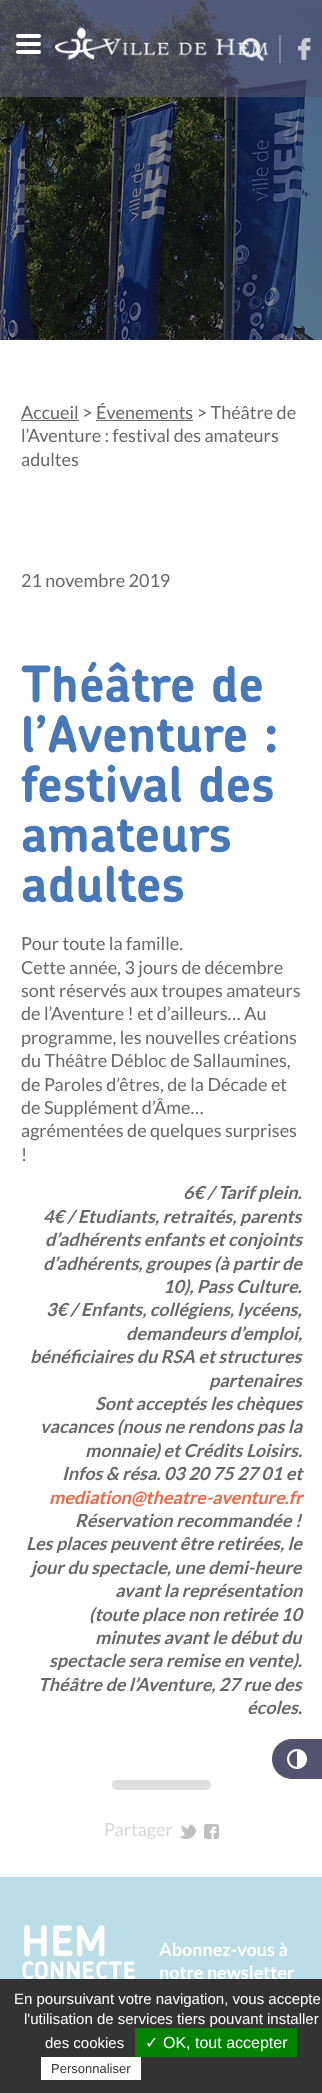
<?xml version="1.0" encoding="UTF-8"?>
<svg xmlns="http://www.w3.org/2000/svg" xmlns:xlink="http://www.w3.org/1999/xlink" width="322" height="2093">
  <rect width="100%" height="100%" fill="#ffffff" />
  <image x="0" y="0" width="322" height="340" xlink:href="image4.png" />
  <rect width="322" height="97" fill="#53526f" fill-opacity="0.65" />
  <rect x="16" y="34" width="25" height="4" rx="2" fill="#ffffff" />
  <rect x="16" y="42" width="25" height="4" rx="2" fill="#ffffff" />
  <rect x="16" y="50" width="25" height="4" rx="2" fill="#ffffff" />
  <image x="54" y="27" width="215" height="33" xlink:href="image1.png" />
  <image x="241" y="38" width="23" height="23" xlink:href="image2.png" />
  <rect x="279" y="35" width="2" height="28" fill="#7f859b" />
  <image x="298" y="38" width="13" height="22" xlink:href="image3.png" />
  <rect x="21" y="420" width="58" height="1" fill="#696868" />
  <rect x="96" y="420" width="97" height="1" fill="#696868" />
  <rect x="112" y="1780" width="99" height="10" rx="5" fill="#e0dfdf" />
  <image x="181" y="1824" width="15" height="15" xlink:href="image5.png" />
  <image x="204" y="1824" width="15" height="15" xlink:href="image6.png" />
  <path d="M 292 1739 h 30 v 40 h -30 c -11 0 -20 -9 -20 -20 c 0 -11 9 -20 20 -20 z" fill="#53526f" />
  <image x="287" y="1749" width="20" height="20" xlink:href="image7.png" />
  <rect y="1877" width="322" height="102" fill="#badde8" />
  <text x="21" y="419" style="font-family: Lato; font-size: 18px; fill: #696868">Accueil &gt; Évenements &gt; Théâtre de</text>
  <text x="21" y="442" style="font-family: Lato; font-size: 18px; fill: #696868">l’Aventure : festival des amateurs</text>
  <text x="21" y="466" style="font-family: Lato; font-size: 18px; fill: #696868">adultes</text>
  <text x="21" y="587" style="font-family: Lato; font-size: 18px; fill: #696868">21 novembre 2019</text>
  <text x="21" y="702" style="font-family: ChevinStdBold; font-size: 50px; fill: #4778ba">Théâtre de</text>
  <text x="21" y="752" style="font-family: ChevinStdBold; font-size: 50px; fill: #4778ba">l’Aventure :</text>
  <text x="21" y="802" style="font-family: ChevinStdBold; font-size: 50px; fill: #4778ba">festival des</text>
  <text x="21" y="852" style="font-family: ChevinStdBold; font-size: 50px; fill: #4778ba">amateurs</text>
  <text x="21" y="902" style="font-family: ChevinStdBold; font-size: 50px; fill: #4778ba">adultes</text>
  <text x="21" y="950" style="font-family: Lato; font-size: 18px; fill: #696868">Pour toute la famille.</text>
  <text x="21" y="974" style="font-family: Lato; font-size: 18px; fill: #696868">Cette année, 3 jours de décembre</text>
  <text x="21" y="997" style="font-family: Lato; font-size: 18px; fill: #696868">sont réservés aux troupes amateurs</text>
  <text x="21" y="1020" style="font-family: Lato; font-size: 18px; fill: #696868">de l’Aventure ! et d’ailleurs… Au</text>
  <text x="21" y="1044" style="font-family: Lato; font-size: 18px; fill: #696868">programme, les nouvelles créations</text>
  <text x="21" y="1067" style="font-family: Lato; font-size: 18px; fill: #696868">du Théâtre Débloc de Sallaumines,</text>
  <text x="21" y="1091" style="font-family: Lato; font-size: 18px; fill: #696868">de Paroles d’êtres, de la Décade et</text>
  <text x="21" y="1114" style="font-family: Lato; font-size: 18px; fill: #696868">de Supplément d’Âme…</text>
  <text x="21" y="1137" style="font-family: Lato; font-size: 18px; fill: #696868">agrémentées de quelques surprises</text>
  <text x="21" y="1161" style="font-family: Lato; font-size: 18px; fill: #696868">!</text>
  <text x="183" y="1199" style="font-family: Lato; font-size: 18px; font-weight: bold; font-style: italic; fill: #696868">6€ / Tarif plein.</text>
  <text x="43" y="1223" style="font-family: Lato; font-size: 18px; font-weight: bold; font-style: italic; fill: #696868">4€ / Etudiants, retraités, parents</text>
  <text x="45" y="1246" style="font-family: Lato; font-size: 18px; font-weight: bold; font-style: italic; fill: #696868">d’adhérents enfants et conjoints</text>
  <text x="43" y="1270" style="font-family: Lato; font-size: 18px; font-weight: bold; font-style: italic; fill: #696868">d’adhérents, groupes (à partir de</text>
  <text x="163" y="1293" style="font-family: Lato; font-size: 18px; font-weight: bold; font-style: italic; fill: #696868">10), Pass Culture.</text>
  <text x="46" y="1316" style="font-family: Lato; font-size: 18px; font-weight: bold; font-style: italic; fill: #696868">3€ / Enfants, collégiens, lycéens,</text>
  <text x="126" y="1340" style="font-family: Lato; font-size: 18px; font-weight: bold; font-style: italic; fill: #696868">demandeurs d’emploi,</text>
  <text x="30" y="1363" style="font-family: Lato; font-size: 18px; font-weight: bold; font-style: italic; fill: #696868">bénéficiaires du RSA et structures</text>
  <text x="209" y="1387" style="font-family: Lato; font-size: 18px; font-weight: bold; font-style: italic; fill: #696868">partenaires</text>
  <text x="95" y="1410" style="font-family: Lato; font-size: 18px; font-weight: bold; font-style: italic; fill: #696868">Sont acceptés les chèques</text>
  <text x="40" y="1433" style="font-family: Lato; font-size: 18px; font-weight: bold; font-style: italic; fill: #696868">vacances (nous ne rendons pas la</text>
  <text x="85" y="1457" style="font-family: Lato; font-size: 18px; font-weight: bold; font-style: italic; fill: #696868">monnaie) et Crédits Loisirs.</text>
  <text x="62" y="1480" style="font-family: Lato; font-size: 18px; font-weight: bold; font-style: italic; fill: #696868">Infos &amp; résa. 03 20 75 27 01 et</text>
  <text x="49" y="1504" style="font-family: Lato; font-size: 18px; font-weight: bold; font-style: italic; fill: #ef6846">mediation@theatre-aventure.fr</text>
  <text x="75" y="1527" style="font-family: Lato; font-size: 18px; font-weight: bold; font-style: italic; fill: #696868">Réservation recommandée !</text>
  <text x="26" y="1550" style="font-family: Lato; font-size: 18px; font-weight: bold; font-style: italic; fill: #696868">Les places peuvent être retirées, le</text>
  <text x="31" y="1574" style="font-family: Lato; font-size: 18px; font-weight: bold; font-style: italic; fill: #696868">jour du spectacle, une demi-heure</text>
  <text x="115" y="1597" style="font-family: Lato; font-size: 18px; font-weight: bold; font-style: italic; fill: #696868">avant la représentation</text>
  <text x="89" y="1621" style="font-family: Lato; font-size: 18px; font-weight: bold; font-style: italic; fill: #696868">(toute place non retirée 10</text>
  <text x="95" y="1644" style="font-family: Lato; font-size: 18px; font-weight: bold; font-style: italic; fill: #696868">minutes avant le début du</text>
  <text x="49" y="1667" style="font-family: Lato; font-size: 18px; font-weight: bold; font-style: italic; fill: #696868">spectacle sera remise en vente).</text>
  <text x="38" y="1691" style="font-family: Lato; font-size: 18px; font-weight: bold; font-style: italic; fill: #696868">Théâtre de l’Aventure, 27 rue des</text>
  <text x="247" y="1714" style="font-family: Lato; font-size: 18px; font-weight: bold; font-style: italic; fill: #696868">écoles.</text>
  <text x="104" y="1836" style="font-family: Lato; font-size: 18px; fill: #d8d8d8">Partager</text>
  <text x="21" y="1956" style="font-family: ChevinStdBold; font-size: 42px; fill: #ffffff">HEM</text>
  <text x="21" y="1979" style="font-family: ChevinStdBold; font-size: 24px; fill: #ffffff">CONNECTE</text>
  <text x="159" y="1956" style="font-family: Lato; font-size: 18px; font-weight: bold; fill: #ffffff">Abonnez-vous à</text>
  <text x="159" y="1979" style="font-family: Lato; font-size: 18px; font-weight: bold; fill: #ffffff">notre newsletter</text>
  <rect y="1979" width="322" height="114" fill="#333333" />
  <text x="14" y="2004" style="font-family: Liberation Sans; font-size: 15px; fill: #ffffff">En poursuivant votre navigation, vous accepte</text>
  <text x="24" y="2024" style="font-family: Liberation Sans; font-size: 15px; fill: #ffffff">l'utilisation de services tiers pouvant installer</text>
  <text x="45" y="2048" style="font-family: Liberation Sans; font-size: 15px; fill: #ffffff">des cookies</text>
  <rect x="135" y="2028" width="162" height="29" fill="#008300" />
  <text x="145" y="2048" style="font-family: DejaVu Sans; font-size: 16px; fill: #ffffff">✓</text>
  <text x="163" y="2048" style="font-family: Liberation Sans; font-size: 16px; fill: #ffffff">OK, tout accepter</text>
  <rect x="41" y="2057" width="100" height="23" fill="#ffffff" />
  <text x="51" y="2073" style="font-family: Liberation Sans; font-size: 13px; fill: #333333">Personnaliser</text>
</svg>
